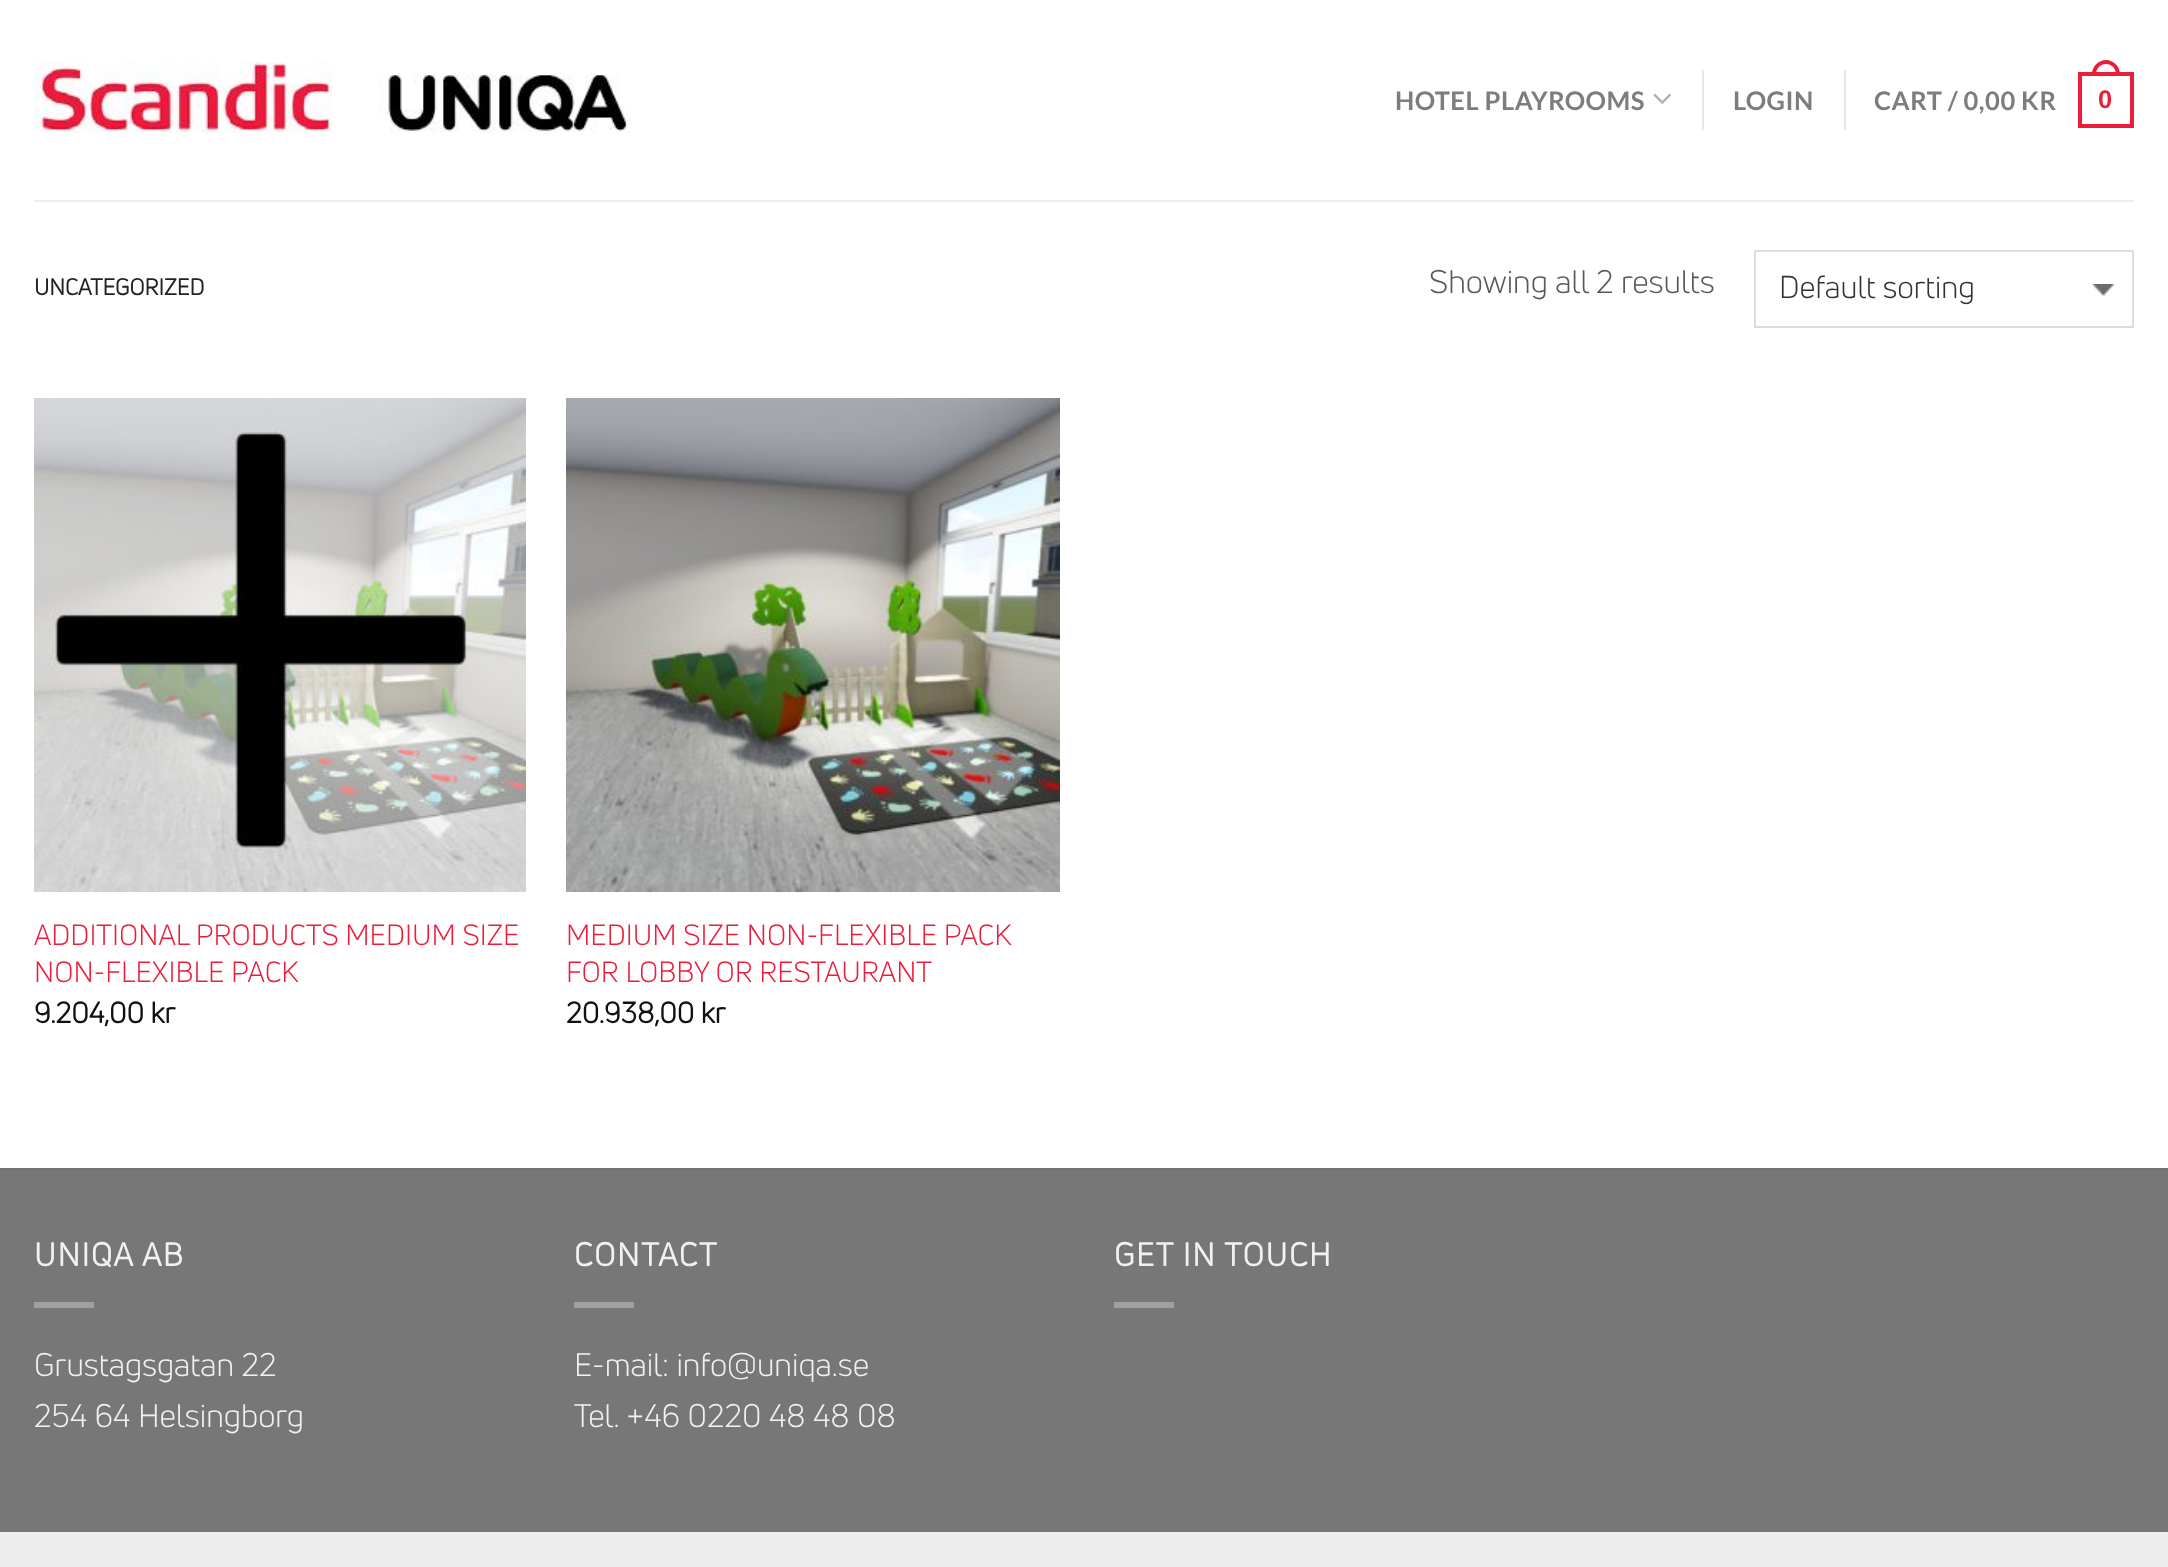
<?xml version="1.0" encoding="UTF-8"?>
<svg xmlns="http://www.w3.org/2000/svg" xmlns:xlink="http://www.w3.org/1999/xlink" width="2168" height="1567">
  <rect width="100%" height="100%" fill="#ffffff" />
  <image x="34" y="62" width="596" height="72" xlink:href="image1.png" />
  <image x="1653" y="93" width="19" height="11" xlink:href="image2.png" />
  <rect x="1702" y="70" width="2" height="60" fill="#e6e6e6" />
  <rect x="1844" y="70" width="2" height="60" fill="#e6e6e6" />
  <rect x="2080" y="74" width="52" height="52" fill="none" stroke="#eb1d3b" stroke-width="4" />
  <path d="M 2106 60 c 7.5 0 14 6.5 14 14 v 2 h -28 v -2 c 0 -7.5 6.5 -14 14 -14 z m 0 4 c 5.5 0 10 4.5 10 10 v 2 h -20 v -2 c 0 -5.5 4.5 -10 10 -10 z" fill="#eb1d3b" fill-rule="evenodd" />
  <rect x="34" y="200" width="2100" height="2" fill="#eeeeee" />
  <image x="2092" y="284" width="23" height="12" xlink:href="image3.png" />
  <rect x="1755" y="251" width="378" height="76" fill="none" stroke="#dddddd" stroke-width="2" />
  <image x="34" y="398" width="492" height="494" xlink:href="image4.png" />
  <image x="566" y="398" width="494" height="494" xlink:href="image5.png" />
  <rect y="1170" width="2168" height="362" fill="#777777" />
  <rect y="1168" width="2168" height="2" fill="#717171" />
  <rect x="34" y="1302" width="60" height="6" fill="#a0a0a0" />
  <rect x="574" y="1302" width="60" height="6" fill="#a0a0a0" />
  <rect x="1114" y="1302" width="60" height="6" fill="#a0a0a0" />
  <rect y="1532" width="2168" height="35" fill="#ededed" />
  <text x="1395" y="110" style="font-family: Lato; font-size: 25.5px; font-weight: bold; letter-spacing: 0.5px; fill: #7d7d7d">HOTEL PLAYROOMS</text>
  <text x="1733" y="110" style="font-family: Lato; font-size: 25.5px; font-weight: bold; letter-spacing: 0.5px; fill: #7d7d7d">LOGIN</text>
  <text x="1874" y="110" style="font-family: Lato; font-size: 25.5px; font-weight: bold; letter-spacing: 0.5px; fill: #7d7d7d">CART / 0,00 KR</text>
  <text x="2098" y="108" style="font-family: Liberation Sans; font-size: 25.5px; font-weight: bold; letter-spacing: 0.5px; fill: #eb1d3b">0</text>
  <text x="34" y="295" style="font-family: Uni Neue; font-size: 22.5px; font-weight: bold; fill: #222222">UNCATEGORIZED</text>
  <text x="1429" y="293" style="font-family: Uni Neue; font-size: 32px; fill: #595959">Showing all 2 results</text>
  <text x="1779" y="298" style="font-family: Uni Neue; font-size: 31px; fill: #333333">Default sorting</text>
  <text x="34" y="945" style="font-family: Uni Neue; font-size: 28.75px; fill: #eb1d3b">ADDITIONAL PRODUCTS MEDIUM SIZE</text>
  <text x="34" y="982" style="font-family: Uni Neue; font-size: 28.75px; fill: #eb1d3b">NON-FLEXIBLE PACK</text>
  <text x="34" y="1023" style="font-family: Uni Neue; font-size: 28.75px; font-weight: bold; fill: #111111">9.204,00 kr</text>
  <text x="566" y="945" style="font-family: Uni Neue; font-size: 28.75px; fill: #eb1d3b">MEDIUM SIZE NON-FLEXIBLE PACK</text>
  <text x="566" y="982" style="font-family: Uni Neue; font-size: 28.75px; fill: #eb1d3b">FOR LOBBY OR RESTAURANT</text>
  <text x="566" y="1023" style="font-family: Uni Neue; font-size: 28.75px; font-weight: bold; fill: #111111">20.938,00 kr</text>
  <text x="34" y="1266" style="font-family: Uni Neue; font-size: 32px; font-weight: bold; letter-spacing: 1.6px; fill: #f1f1f1">UNIQA AB</text>
  <text x="34" y="1376" style="font-family: Uni Neue; font-size: 32px; fill: #f1f1f1">Grustagsgatan 22</text>
  <text x="34" y="1427" style="font-family: Uni Neue; font-size: 32px; fill: #f1f1f1">254 64 Helsingborg</text>
  <text x="574" y="1266" style="font-family: Uni Neue; font-size: 32px; font-weight: bold; letter-spacing: 1.6px; fill: #f1f1f1">CONTACT</text>
  <text x="574" y="1376" style="font-family: Uni Neue; font-size: 32px; fill: #f1f1f1">E-mail: info@uniqa.se</text>
  <text x="574" y="1427" style="font-family: Uni Neue; font-size: 32px; fill: #f1f1f1">Tel. +46 0220 48 48 08</text>
  <text x="1114" y="1266" style="font-family: Uni Neue; font-size: 32px; font-weight: bold; letter-spacing: 1.6px; fill: #f1f1f1">GET IN TOUCH</text>
</svg>
